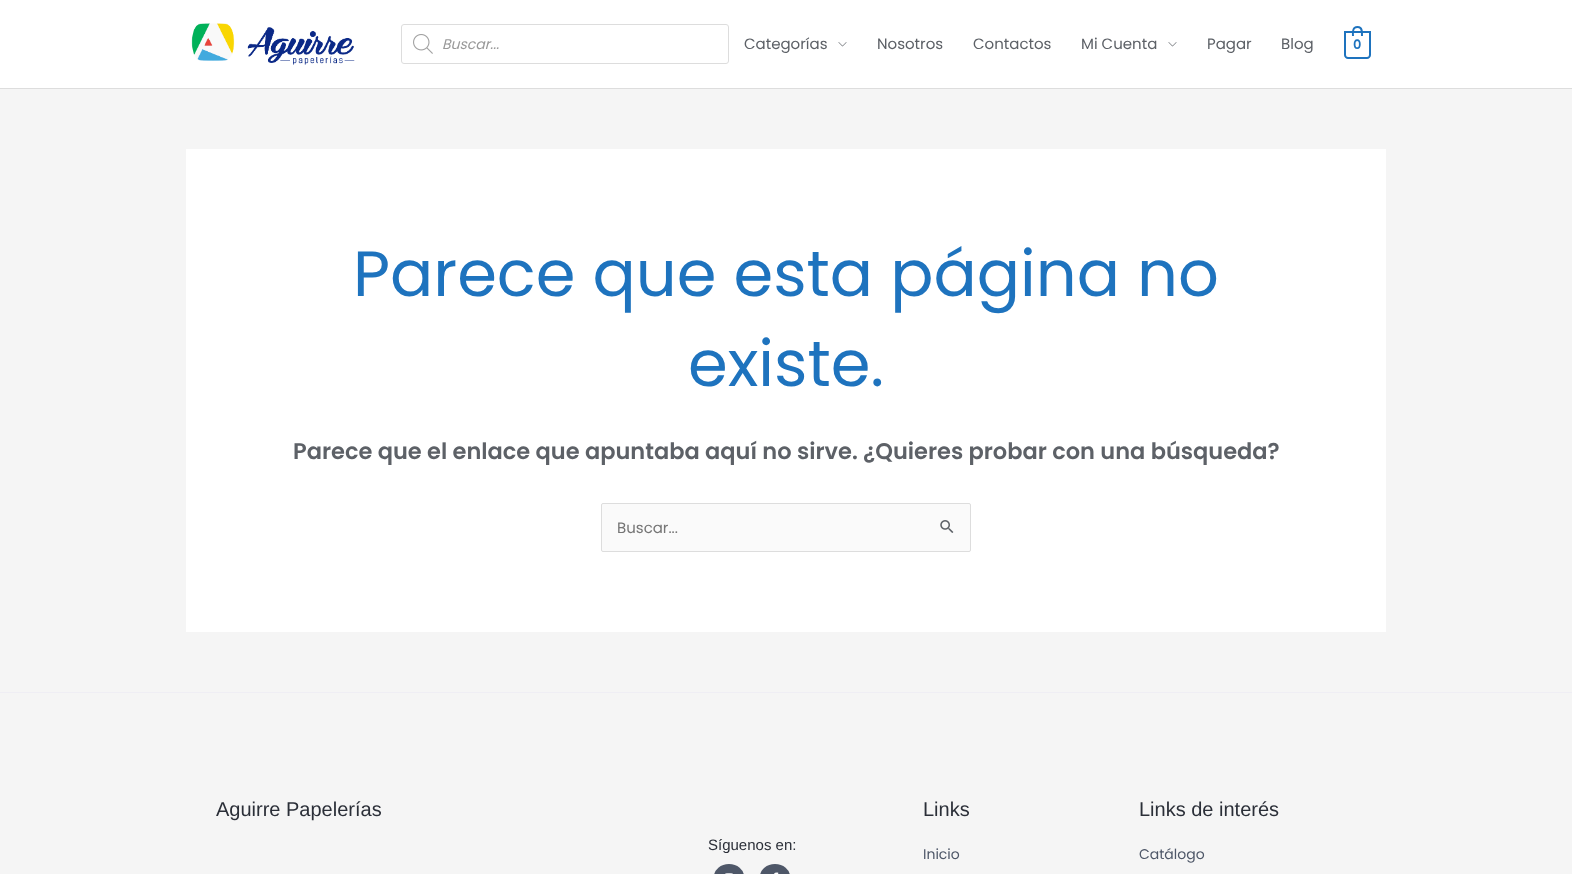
<?xml version="1.0" encoding="UTF-8"?>
<svg xmlns="http://www.w3.org/2000/svg" xmlns:xlink="http://www.w3.org/1999/xlink" width="1572" height="874">
  <rect width="100%" height="100%" fill="#f5f5f5" />
  <rect width="1572" height="88" fill="#ffffff" />
  <rect y="88" width="1572" height="1" fill="#dddddd" />
  <image x="191" y="23" width="164" height="42" xlink:href="image1.png" />
  <rect x="401.5" y="24.5" width="327" height="39" rx="2.5" fill="none" stroke="#dddddd" />
  <image x="413" y="34" width="20" height="20" xlink:href="image2.png" />
  <image x="838" y="42" width="9" height="5" xlink:href="image3.png" />
  <image x="1168" y="42" width="9" height="5" xlink:href="image3.png" />
  <path d="M 1345 32 h 25 v 23 c 0 1.5 -1.5 3 -3 3 h -19 c -1.5 0 -3 -1.5 -3 -3 z" fill="none" stroke="#1e73be" stroke-width="2" />
  <path d="M 1357.5 26 c 6 0 5.5 6 5.5 10 h -11 c 0 -4 -0.5 -10 5.5 -10 z m 0 2 c 4 0 3.5 5 3.5 8 h -7 c 0 -3 -1 -8 3.5 -8 z" fill="#1e73be" fill-rule="evenodd" />
  <rect x="186" y="149" width="1200" height="483" fill="#ffffff" />
  <rect x="601.5" y="503.5" width="369" height="48" rx="1.5" fill="#fafafa" stroke="#dddddd" />
  <image x="940" y="520" width="14" height="13" xlink:href="image4.png" />
  <rect y="692" width="1572" height="1" fill="#efeef4" />
  <rect x="714" y="864" width="30" height="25" rx="15" fill="#4e5768" />
  <image x="725" y="873" width="8" height="1" xlink:href="image5.png" />
  <rect x="760" y="864" width="30" height="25" rx="15" fill="#4e5768" />
  <image x="774" y="872" width="5" height="2" xlink:href="image6.png" />
  <text x="442" y="49" style="font-family: Poppins; font-size: 14px; font-style: italic; fill: #999999">Buscar...</text>
  <text x="744" y="49" style="font-family: Poppins; font-size: 15px; fill: #5d6167">Categorías</text>
  <text x="877" y="49" style="font-family: Poppins; font-size: 15px; fill: #5d6167">Nosotros</text>
  <text x="973" y="49" style="font-family: Poppins; font-size: 15px; fill: #5d6167">Contactos</text>
  <text x="1081" y="49" style="font-family: Poppins; font-size: 15px; fill: #5d6167">Mi Cuenta</text>
  <text x="1207" y="49" style="font-family: Poppins; font-size: 15px; fill: #5d6167">Pagar</text>
  <text x="1281" y="49" style="font-family: Poppins; font-size: 15px; fill: #5d6167">Blog</text>
  <text x="1353" y="49" style="font-family: Poppins; font-size: 13px; font-weight: 600; fill: #1e73be">0</text>
  <text x="353" y="296" style="font-family: Poppins; font-size: 64px; fill: #1e73be">Parece que esta página no</text>
  <text x="688" y="386" style="font-family: Poppins; font-size: 64px; fill: #1e73be">existe.</text>
  <text x="293" y="459" style="font-family: Poppins; font-size: 22.5px; font-weight: 600; fill: #5d6167">Parece que el enlace que apuntaba aquí no sirve. ¿Quieres probar con una búsqueda?</text>
  <text x="617" y="533" style="font-family: Poppins; font-size: 15px; fill: #757575">Buscar...</text>
  <text x="216" y="816" style="font-family: Liberation Sans; font-size: 20px; fill: #2b2f38">Aguirre Papelerías</text>
  <text x="708" y="850" style="font-family: Liberation Sans; font-size: 15px; fill: #2b2f38">Síguenos en:</text>
  <text x="923" y="816" style="font-family: Liberation Sans; font-size: 20px; fill: #2b2f38">Links</text>
  <text x="923" y="859" style="font-family: Poppins; font-size: 14px; fill: #4e5768">Inicio</text>
  <text x="1139" y="816" style="font-family: Liberation Sans; font-size: 20px; fill: #2b2f38">Links de interés</text>
  <text x="1139" y="859" style="font-family: Poppins; font-size: 14px; fill: #4e5768">Catálogo</text>
</svg>
